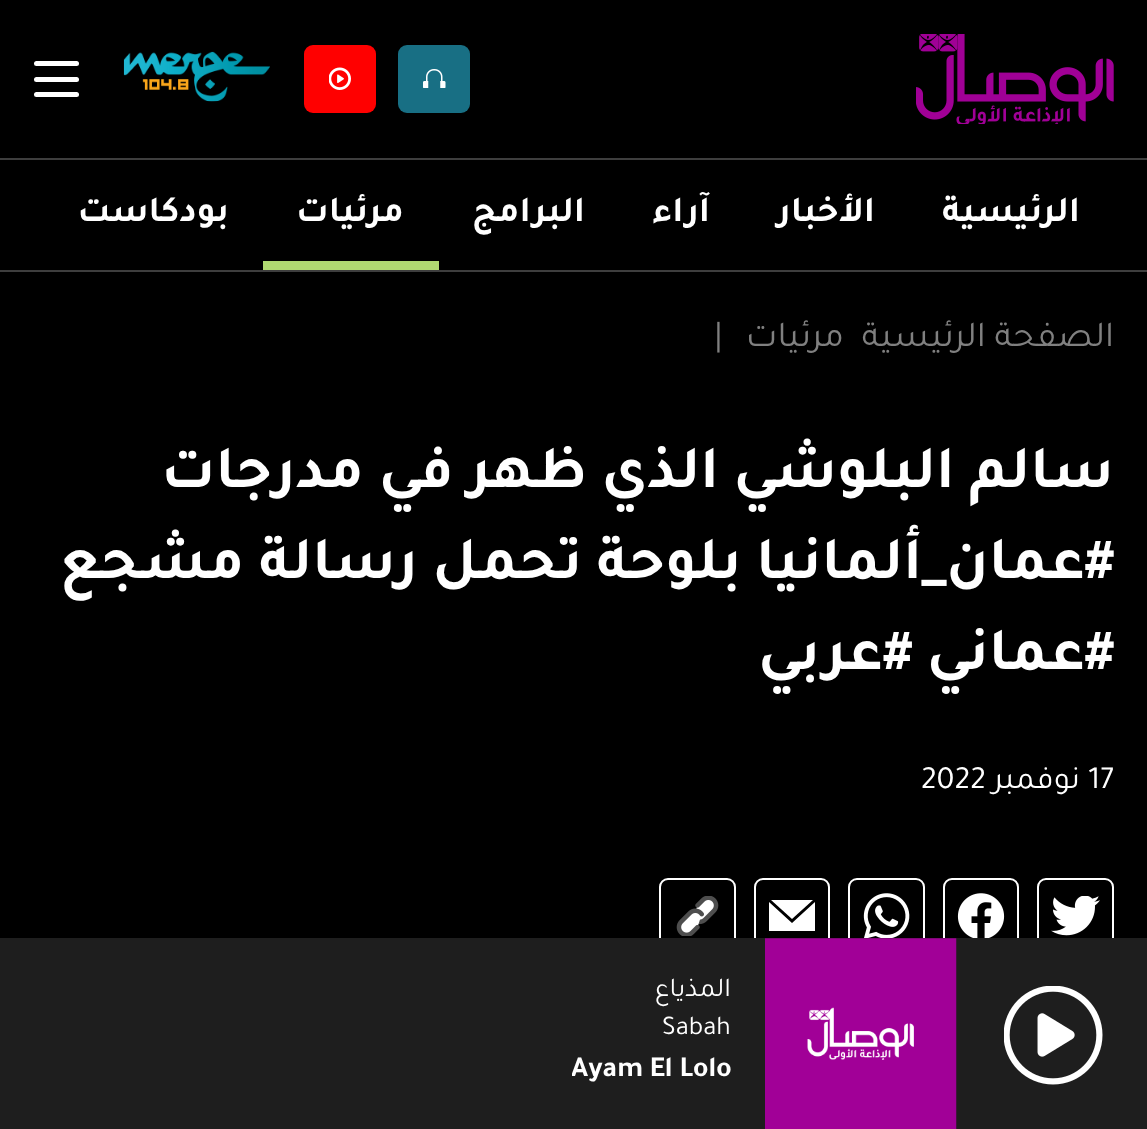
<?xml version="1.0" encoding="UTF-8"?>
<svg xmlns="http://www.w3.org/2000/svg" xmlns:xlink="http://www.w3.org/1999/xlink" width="1147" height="1129">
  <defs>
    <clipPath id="clip1"><rect x="572" y="1053" width="159" height="41" /></clipPath>
  </defs>
  <rect width="100%" height="100%" fill="#000000" />
  <image x="916" y="34" width="198" height="90" xlink:href="image1.png" />
  <rect x="398" y="45" width="72" height="68" rx="9" fill="#186f84" />
  <image x="423" y="69" width="23" height="19" xlink:href="image2.png" />
  <rect x="304" y="45" width="72" height="68" rx="9" fill="#ff0000" />
  <image x="329" y="67" width="22" height="23" xlink:href="image3.png" />
  <image x="123" y="51" width="147" height="51" xlink:href="image4.png" />
  <rect x="34" y="61" width="45" height="5" rx="2.5" fill="#ffffff" />
  <rect x="34" y="77" width="45" height="5" rx="2.5" fill="#ffffff" />
  <rect x="34" y="92" width="45" height="5" rx="2.5" fill="#ffffff" />
  <rect y="158" width="1147" height="2" fill="#3e3e3e" />
  <rect y="270" width="1147" height="2" fill="#3e3e3e" />
  <rect x="263" y="261" width="176" height="9" fill="#b0d971" />
  <rect x="1038" y="879" width="75" height="74" rx="8" fill="none" stroke="#ffffff" stroke-width="2" />
  <image x="1051" y="896" width="49" height="40" xlink:href="image5.png" />
  <rect x="944" y="879" width="74" height="74" rx="8" fill="none" stroke="#ffffff" stroke-width="2" />
  <image x="957" y="893" width="48" height="45" xlink:href="image6.png" />
  <rect x="849" y="879" width="75" height="74" rx="8" fill="none" stroke="#ffffff" stroke-width="2" />
  <image x="863" y="893" width="47" height="45" xlink:href="image7.png" />
  <rect x="755" y="879" width="74" height="74" rx="8" fill="none" stroke="#ffffff" stroke-width="2" />
  <path d="M 771 900 l 21 19 l 21 -19 z" fill="#ffffff" />
  <path d="M 792 923 l -23 -21 v 29 h 46 v -29 z" fill="#ffffff" />
  <rect x="660" y="879" width="75" height="74" rx="8" fill="none" stroke="#ffffff" stroke-width="2" />
  <image x="676" y="896" width="43" height="40" xlink:href="image8.png" />
  <rect y="938" width="1147" height="191" fill="#1e1e1e" />
  <image x="1004" y="986" width="99" height="99" xlink:href="image9.png" />
  <image x="765" y="938" width="192" height="191" xlink:href="image10.png" />
  <text x="1080" y="221" style="font-family: Tajawal; font-size: 36.5px; font-weight: bold; direction: rtl; fill: #ffffff">الرئيسية</text>
  <text x="875" y="221" style="font-family: Tajawal; font-size: 36.5px; font-weight: bold; direction: rtl; fill: #ffffff">الأخبار</text>
  <text x="710" y="221" style="font-family: Tajawal; font-size: 36.5px; font-weight: bold; direction: rtl; fill: #ffffff">آراء</text>
  <text x="585" y="221" style="font-family: Tajawal; font-size: 36.5px; font-weight: bold; direction: rtl; fill: #ffffff">البرامج</text>
  <text x="404" y="221" style="font-family: Tajawal; font-size: 36.5px; font-weight: bold; direction: rtl; fill: #ffffff">مرئيات</text>
  <text x="229" y="221" style="font-family: Tajawal; font-size: 36.5px; font-weight: bold; direction: rtl; fill: #ffffff">بودكاست</text>
  <text x="1114" y="346" style="font-family: Tajawal; font-size: 36.5px; direction: rtl; fill: #808080">الصفحة الرئيسية</text>
  <text x="844" y="346" style="font-family: Tajawal; font-size: 36.5px; direction: rtl; fill: #808080">مرئيات</text>
  <text x="714" y="346" style="font-family: Tajawal; font-size: 36.5px; fill: #808080">|</text>
  <text x="1114" y="487" style="font-family: Tajawal; font-size: 60.75px; font-weight: bold; direction: rtl; fill: #ffffff">سالم البلوشي الذي ظهر في مدرجات</text>
  <text x="1114" y="578" style="font-family: Tajawal; font-size: 60.75px; font-weight: bold; direction: rtl; fill: #ffffff">#عمان_ألمانيا بلوحة تحمل رسالة مشجع</text>
  <text x="1114" y="669" style="font-family: Tajawal; font-size: 60.75px; font-weight: bold; direction: rtl; fill: #ffffff">#عماني #عربي</text>
  <text x="1088" y="788" style="font-family: Tajawal; font-size: 32.5px; fill: #ffffff">17</text>
  <text x="1080" y="788" style="font-family: Tajawal; font-size: 32.5px; direction: rtl; fill: #ffffff">نوفمبر</text>
  <text x="921" y="788" style="font-family: Tajawal; font-size: 32.5px; fill: #ffffff">2022</text>
  <text x="731" y="996" style="font-family: Tajawal; font-size: 27px; direction: rtl; fill: #ffffff">المذياع</text>
  <text x="662" y="1034" style="font-family: Tajawal; font-size: 27px; fill: #ffffff">Sabah</text>
  <g clip-path="url(#clip1)">
    <text x="571" y="1076" style="font-family: Tajawal; font-size: 29.25px; font-weight: bold; fill: #ffffff">Ayam El Lolo</text>
  </g>
</svg>
